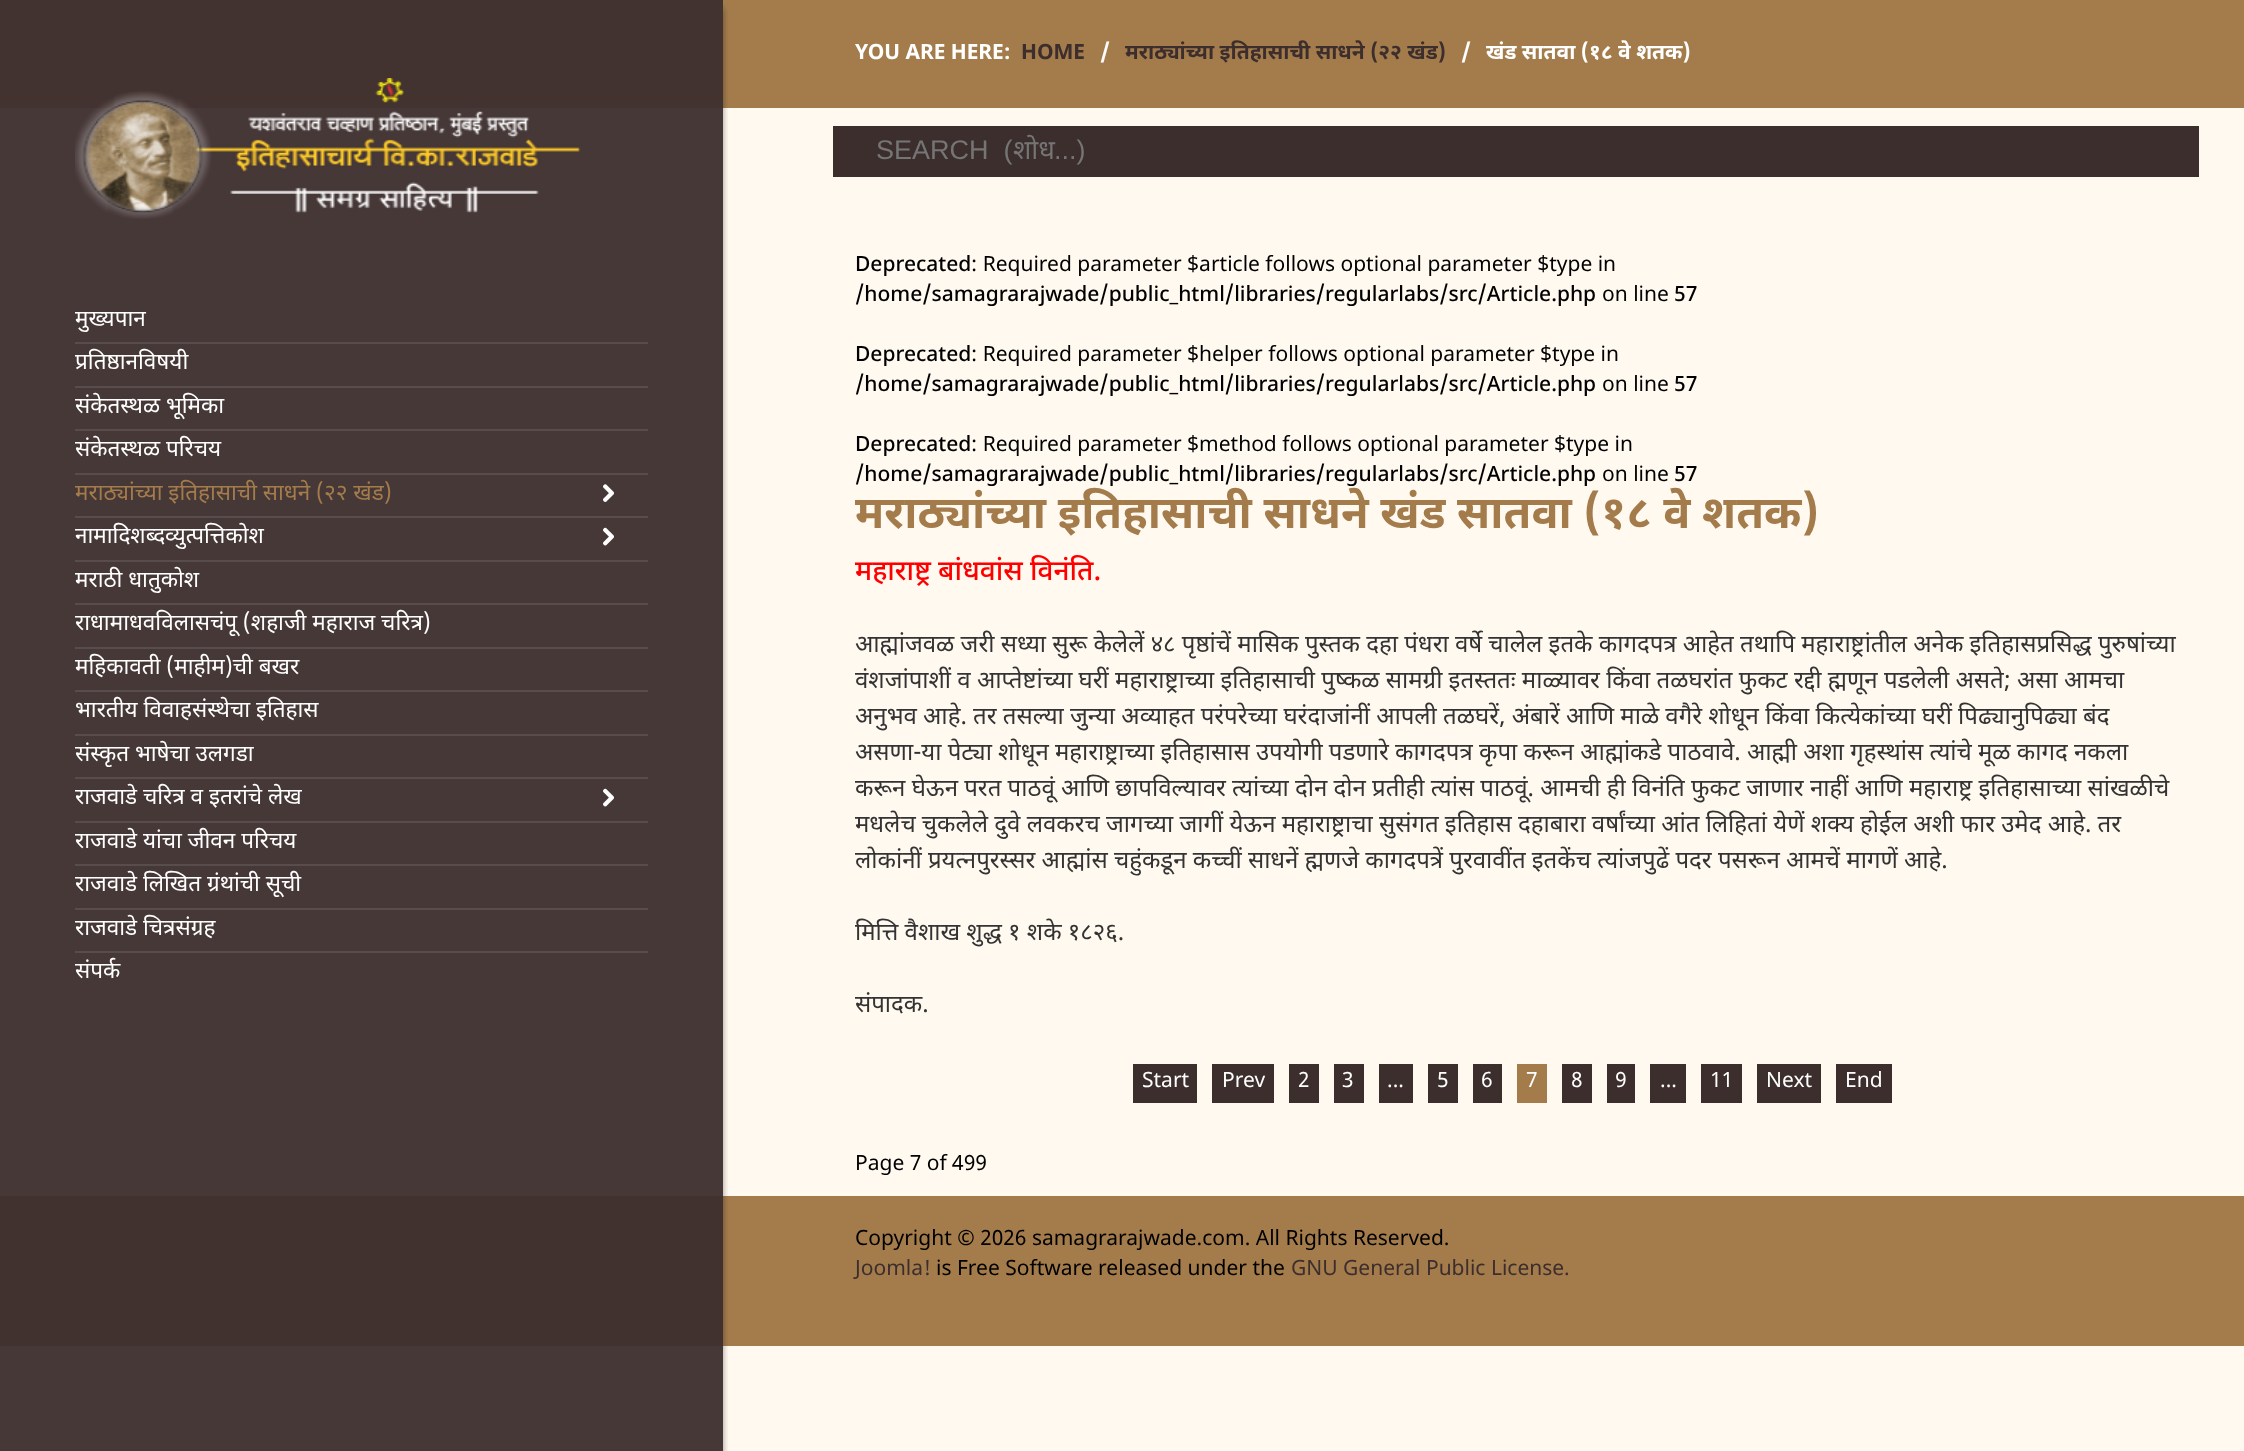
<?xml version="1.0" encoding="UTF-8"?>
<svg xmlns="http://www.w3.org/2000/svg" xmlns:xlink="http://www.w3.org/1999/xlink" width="2244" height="1451">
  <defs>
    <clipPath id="clip1"><rect x="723" y="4" width="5" height="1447" /></clipPath>
  </defs>
  <rect width="100%" height="100%" fill="#fff9f0" />
  <rect y="108" width="723" height="1343" fill="#473838" />
  <rect x="723" width="1521" height="108" fill="#a47c4c" />
  <rect width="723" height="108" fill="#423230" />
  <rect x="723" y="1196" width="1521" height="150" fill="#a47c4b" />
  <rect y="1196" width="723" height="150" fill="#42322f" />
  <g clip-path="url(#clip1)">
    <rect y="8" width="723" height="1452" fill="#000000" fill-opacity="0.4" filter="blur(3px)" />
  </g>
  <image x="75" y="78" width="506" height="141" xlink:href="image1.png" />
  <rect x="75" y="342" width="573" height="2" fill="#594c4c" />
  <rect x="75" y="386" width="573" height="2" fill="#594c4c" />
  <rect x="75" y="429" width="573" height="2" fill="#594c4c" />
  <rect x="75" y="473" width="573" height="2" fill="#594c4c" />
  <image x="603" y="484" width="11" height="18" xlink:href="image2.png" />
  <rect x="75" y="516" width="573" height="2" fill="#594c4c" />
  <image x="603" y="527" width="11" height="19" xlink:href="image3.png" />
  <rect x="75" y="560" width="573" height="2" fill="#594c4c" />
  <rect x="75" y="603" width="573" height="2" fill="#594c4c" />
  <rect x="75" y="647" width="573" height="2" fill="#594c4c" />
  <rect x="75" y="690" width="573" height="2" fill="#594c4c" />
  <rect x="75" y="734" width="573" height="2" fill="#594c4c" />
  <rect x="75" y="777" width="573" height="2" fill="#594c4c" />
  <image x="603" y="788" width="11" height="19" xlink:href="image3.png" />
  <rect x="75" y="821" width="573" height="2" fill="#594c4c" />
  <rect x="75" y="864" width="573" height="2" fill="#594c4c" />
  <rect x="75" y="908" width="573" height="2" fill="#594c4c" />
  <rect x="75" y="951" width="573" height="2" fill="#594c4c" />
  <rect x="833" y="126" width="1366" height="51" fill="#3d2e2e" />
  <rect x="1133" y="1064" width="64" height="39" fill="#3d2e2e" />
  <rect x="1212" y="1064" width="62" height="39" fill="#3d2e2e" />
  <rect x="1289" y="1064" width="30" height="39" fill="#3d2e2e" />
  <rect x="1334" y="1064" width="30" height="39" fill="#3d2e2e" />
  <rect x="1379" y="1064" width="34" height="39" fill="#3d2e2e" />
  <rect x="1428" y="1064" width="30" height="39" fill="#3d2e2e" />
  <rect x="1473" y="1064" width="29" height="39" fill="#3d2e2e" />
  <rect x="1517" y="1064" width="30" height="39" fill="#a47c4b" />
  <rect x="1562" y="1064" width="30" height="39" fill="#3d2e2e" />
  <rect x="1607" y="1064" width="28" height="39" fill="#3d2e2e" />
  <rect x="1650" y="1064" width="36" height="39" fill="#3d2e2e" />
  <rect x="1701" y="1064" width="41" height="39" fill="#3d2e2e" />
  <rect x="1757" y="1064" width="64" height="39" fill="#3d2e2e" />
  <rect x="1836" y="1064" width="56" height="39" fill="#3d2e2e" />
  <text x="75" y="326" style="font-family: Noto Sans Devanagari; font-size: 22.5px; fill: #ffffff">मुख्यपान</text>
  <text x="75" y="369" style="font-family: Noto Sans Devanagari; font-size: 22.5px; fill: #ffffff">प्रतिष्ठानविषयी</text>
  <text x="75" y="413" style="font-family: Noto Sans Devanagari; font-size: 22.5px; fill: #ffffff">संकेतस्थळ भूमिका</text>
  <text x="75" y="456" style="font-family: Noto Sans Devanagari; font-size: 22.5px; fill: #ffffff">संकेतस्थळ परिचय</text>
  <text x="75" y="500" style="font-family: Noto Sans Devanagari; font-size: 22.5px; fill: #a47c4c">मराठ्यांच्या इतिहासाची साधने (२२ खंड)</text>
  <text x="75" y="543" style="font-family: Noto Sans Devanagari; font-size: 22.5px; fill: #ffffff">नामादिशब्दव्युत्पत्तिकोश</text>
  <text x="75" y="587" style="font-family: Noto Sans Devanagari; font-size: 22.5px; fill: #ffffff">मराठी धातुकोश</text>
  <text x="75" y="630" style="font-family: Noto Sans Devanagari; font-size: 22.5px; fill: #ffffff">राधामाधवविलासचंपू (शहाजी महाराज चरित्र)</text>
  <text x="75" y="674" style="font-family: Noto Sans Devanagari; font-size: 22.5px; fill: #ffffff">महिकावती (माहीम)ची बखर</text>
  <text x="75" y="717" style="font-family: Noto Sans Devanagari; font-size: 22.5px; fill: #ffffff">भारतीय विवाहसंस्थेचा इतिहास</text>
  <text x="75" y="761" style="font-family: Noto Sans Devanagari; font-size: 22.5px; fill: #ffffff">संस्कृत भाषेचा उलगडा</text>
  <text x="75" y="804" style="font-family: Noto Sans Devanagari; font-size: 22.5px; fill: #ffffff">राजवाडे चरित्र व इतरांचे लेख</text>
  <text x="75" y="848" style="font-family: Noto Sans Devanagari; font-size: 22.5px; fill: #ffffff">राजवाडे यांचा जीवन परिचय</text>
  <text x="75" y="891" style="font-family: Noto Sans Devanagari; font-size: 22.5px; fill: #ffffff">राजवाडे लिखित ग्रंथांची सूची</text>
  <text x="75" y="935" style="font-family: Noto Sans Devanagari; font-size: 22.5px; fill: #ffffff">राजवाडे चित्रसंग्रह</text>
  <text x="75" y="978" style="font-family: Noto Sans Devanagari; font-size: 22.5px; fill: #ffffff">संपर्क</text>
  <text x="855" y="59" style="font-family: Noto Sans Devanagari; font-size: 21px; font-weight: bold; fill: #ffffff">YOU ARE HERE:</text>
  <text x="1021" y="59" style="font-family: Noto Sans Devanagari; font-size: 21px; font-weight: bold; fill: #3d2e2e">HOME</text>
  <text x="1100" y="59" style="font-family: Noto Sans Devanagari; font-size: 21px; font-weight: bold; fill: #ffffff">/</text>
  <text x="1125" y="59" style="font-family: Noto Sans Devanagari; font-size: 21px; font-weight: bold; fill: #3d2e2e">मराठ्यांच्या इतिहासाची साधने (२२ खंड)</text>
  <text x="1461" y="59" style="font-family: Noto Sans Devanagari; font-size: 21px; font-weight: bold; fill: #ffffff">/</text>
  <text x="1486" y="59" style="font-family: Noto Sans Devanagari; font-size: 21px; font-weight: bold; fill: #ffffff">खंड सातवा (१८ वे शतक)</text>
  <text x="876" y="159" style="font-family: Liberation Sans; font-size: 27px; fill: #757575" xml:space="preserve">SEARCH  (</text>
  <text x="1013" y="159" style="font-family: Noto Sans; font-size: 27px; fill: #757575">शोध</text>
  <text x="1054" y="159" style="font-family: Liberation Sans; font-size: 27px; fill: #757575">...)</text>
  <text x="855" y="271" style="font-family: Noto Sans Devanagari; font-size: 21px; font-weight: 500; fill: #000000">Deprecated</text>
  <text x="971" y="271" style="font-family: Noto Sans Devanagari; font-size: 21px; fill: #000000">: Required parameter $article follows optional parameter $type in</text>
  <text x="855" y="301" style="font-family: Noto Sans Devanagari; font-size: 21px; font-weight: 500; fill: #000000">/home/samagrarajwade/public_html/libraries/regularlabs/src/Article.php</text>
  <text x="1602" y="301" style="font-family: Noto Sans Devanagari; font-size: 21px; fill: #000000">on line</text>
  <text x="1674" y="301" style="font-family: Noto Sans Devanagari; font-size: 21px; font-weight: 500; fill: #000000">57</text>
  <text x="855" y="361" style="font-family: Noto Sans Devanagari; font-size: 21px; font-weight: 500; fill: #000000">Deprecated</text>
  <text x="971" y="361" style="font-family: Noto Sans Devanagari; font-size: 21px; fill: #000000">: Required parameter $helper follows optional parameter $type in</text>
  <text x="855" y="391" style="font-family: Noto Sans Devanagari; font-size: 21px; font-weight: 500; fill: #000000">/home/samagrarajwade/public_html/libraries/regularlabs/src/Article.php</text>
  <text x="1602" y="391" style="font-family: Noto Sans Devanagari; font-size: 21px; fill: #000000">on line</text>
  <text x="1674" y="391" style="font-family: Noto Sans Devanagari; font-size: 21px; font-weight: 500; fill: #000000">57</text>
  <text x="855" y="451" style="font-family: Noto Sans Devanagari; font-size: 21px; font-weight: 500; fill: #000000">Deprecated</text>
  <text x="971" y="451" style="font-family: Noto Sans Devanagari; font-size: 21px; fill: #000000">: Required parameter $method follows optional parameter $type in</text>
  <text x="855" y="481" style="font-family: Noto Sans Devanagari; font-size: 21px; font-weight: 500; fill: #000000">/home/samagrarajwade/public_html/libraries/regularlabs/src/Article.php</text>
  <text x="1602" y="481" style="font-family: Noto Sans Devanagari; font-size: 21px; fill: #000000">on line</text>
  <text x="1674" y="481" style="font-family: Noto Sans Devanagari; font-size: 21px; font-weight: 500; fill: #000000">57</text>
  <text x="855" y="528" style="font-family: Noto Sans Devanagari; font-size: 45px; font-weight: bold; fill: #a47c4c">मराठ्यांच्या इतिहासाची साधने खंड सातवा (१८ वे शतक)</text>
  <text x="855" y="580" style="font-family: Noto Sans Devanagari; font-size: 28px; font-weight: 500; fill: #ff0000">महाराष्ट्र बांधवांस विनंति.</text>
  <text x="855" y="652" style="font-family: Noto Sans Devanagari; font-size: 24px; fill: #333333">आह्मांजवळ जरी सध्या सुरू केलेलें ४८ पृष्ठांचें मासिक पुस्तक दहा पंधरा वर्षे चालेल इतके कागदपत्र आहेत तथापि महाराष्ट्रांतील अनेक इतिहासप्रसिद्ध पुरुषांच्या</text>
  <text x="855" y="688" style="font-family: Noto Sans Devanagari; font-size: 24px; fill: #333333">वंशजांपाशीं व आप्तेष्टांच्या घरीं महाराष्ट्राच्या इतिहासाची पुष्कळ सामग्री इतस्ततः माळ्यावर किंवा तळघरांत फुकट रद्दी ह्मणून पडलेली असते; असा आमचा</text>
  <text x="855" y="724" style="font-family: Noto Sans Devanagari; font-size: 24px; fill: #333333">अनुभव आहे. तर तसल्या जुन्या अव्याहत परंपरेच्या घरंदाजांनीं आपली तळघरें, अंबारें आणि माळे वगैरे शोधून किंवा कित्येकांच्या घरीं पिढ्यानुपिढ्या बंद</text>
  <text x="855" y="760" style="font-family: Noto Sans Devanagari; font-size: 24px; fill: #333333">असणा-या पेट्या शोधून महाराष्ट्राच्या इतिहासास उपयोगी पडणारे कागदपत्र कृपा करून आह्मांकडे पाठवावे. आह्मी अशा गृहस्थांस त्यांचे मूळ कागद नकला</text>
  <text x="855" y="796" style="font-family: Noto Sans Devanagari; font-size: 24px; fill: #333333">करून घेऊन परत पाठवूं आणि छापविल्यावर त्यांच्या दोन दोन प्रतीही त्यांस पाठवूं. आमची ही विनंति फुकट जाणार नाहीं आणि महाराष्ट्र इतिहासाच्या सांखळीचे</text>
  <text x="855" y="832" style="font-family: Noto Sans Devanagari; font-size: 24px; fill: #333333">मधलेच चुकलेले दुवे लवकरच जागच्या जागीं येऊन महाराष्ट्राचा सुसंगत इतिहास दहाबारा वर्षांच्या आंत लिहितां येणें शक्य होईल अशी फार उमेद आहे. तर</text>
  <text x="855" y="868" style="font-family: Noto Sans Devanagari; font-size: 24px; fill: #333333">लोकांनीं प्रयत्नपुरस्सर आह्मांस चहुंकडून कच्चीं साधनें ह्मणजे कागदपत्रें पुरवावींत इतकेंच त्यांजपुढें पदर पसरून आमचें मागणें आहे.</text>
  <text x="855" y="940" style="font-family: Noto Sans Devanagari; font-size: 24px; fill: #333333">मित्ति वैशाख शुद्ध १ शके १८२६.</text>
  <text x="855" y="1012" style="font-family: Noto Sans Devanagari; font-size: 24px; fill: #333333">संपादक.</text>
  <text x="1142" y="1087" style="font-family: Noto Sans Devanagari; font-size: 21px; fill: #ffffff">Start</text>
  <text x="1222" y="1087" style="font-family: Noto Sans Devanagari; font-size: 21px; fill: #ffffff">Prev</text>
  <text x="1298" y="1087" style="font-family: Noto Sans Devanagari; font-size: 21px; fill: #ffffff">2</text>
  <text x="1342" y="1087" style="font-family: Noto Sans Devanagari; font-size: 21px; fill: #ffffff">3</text>
  <text x="1387" y="1087" style="font-family: Noto Sans Devanagari; font-size: 21px; fill: #ffffff">...</text>
  <text x="1437" y="1087" style="font-family: Noto Sans Devanagari; font-size: 21px; fill: #ffffff">5</text>
  <text x="1481" y="1087" style="font-family: Noto Sans Devanagari; font-size: 21px; fill: #ffffff">6</text>
  <text x="1526" y="1087" style="font-family: Noto Sans Devanagari; font-size: 21px; fill: #ffffff">7</text>
  <text x="1571" y="1087" style="font-family: Noto Sans Devanagari; font-size: 21px; fill: #ffffff">8</text>
  <text x="1615" y="1087" style="font-family: Noto Sans Devanagari; font-size: 21px; fill: #ffffff">9</text>
  <text x="1660" y="1087" style="font-family: Noto Sans Devanagari; font-size: 21px; fill: #ffffff">...</text>
  <text x="1710" y="1087" style="font-family: Noto Sans Devanagari; font-size: 21px; fill: #ffffff">11</text>
  <text x="1766" y="1087" style="font-family: Noto Sans Devanagari; font-size: 21px; fill: #ffffff">Next</text>
  <text x="1845" y="1087" style="font-family: Noto Sans Devanagari; font-size: 21px; fill: #ffffff">End</text>
  <text x="855" y="1170" style="font-family: Noto Sans Devanagari; font-size: 21px; fill: #000000">Page 7 of 499</text>
  <text x="855" y="1245" style="font-family: Noto Sans Devanagari; font-size: 21px; fill: #000000">Copyright © 2026 samagrarajwade.com. All Rights Reserved.</text>
  <text x="855" y="1275" style="font-family: Noto Sans Devanagari; font-size: 21px; fill: #3d2e2e">Joomla!</text>
  <text x="936" y="1275" style="font-family: Noto Sans Devanagari; font-size: 21px; fill: #000000">is Free Software released under the</text>
  <text x="1291" y="1275" style="font-family: Noto Sans Devanagari; font-size: 21px; fill: #3d2e2e">GNU General Public License.</text>
</svg>
